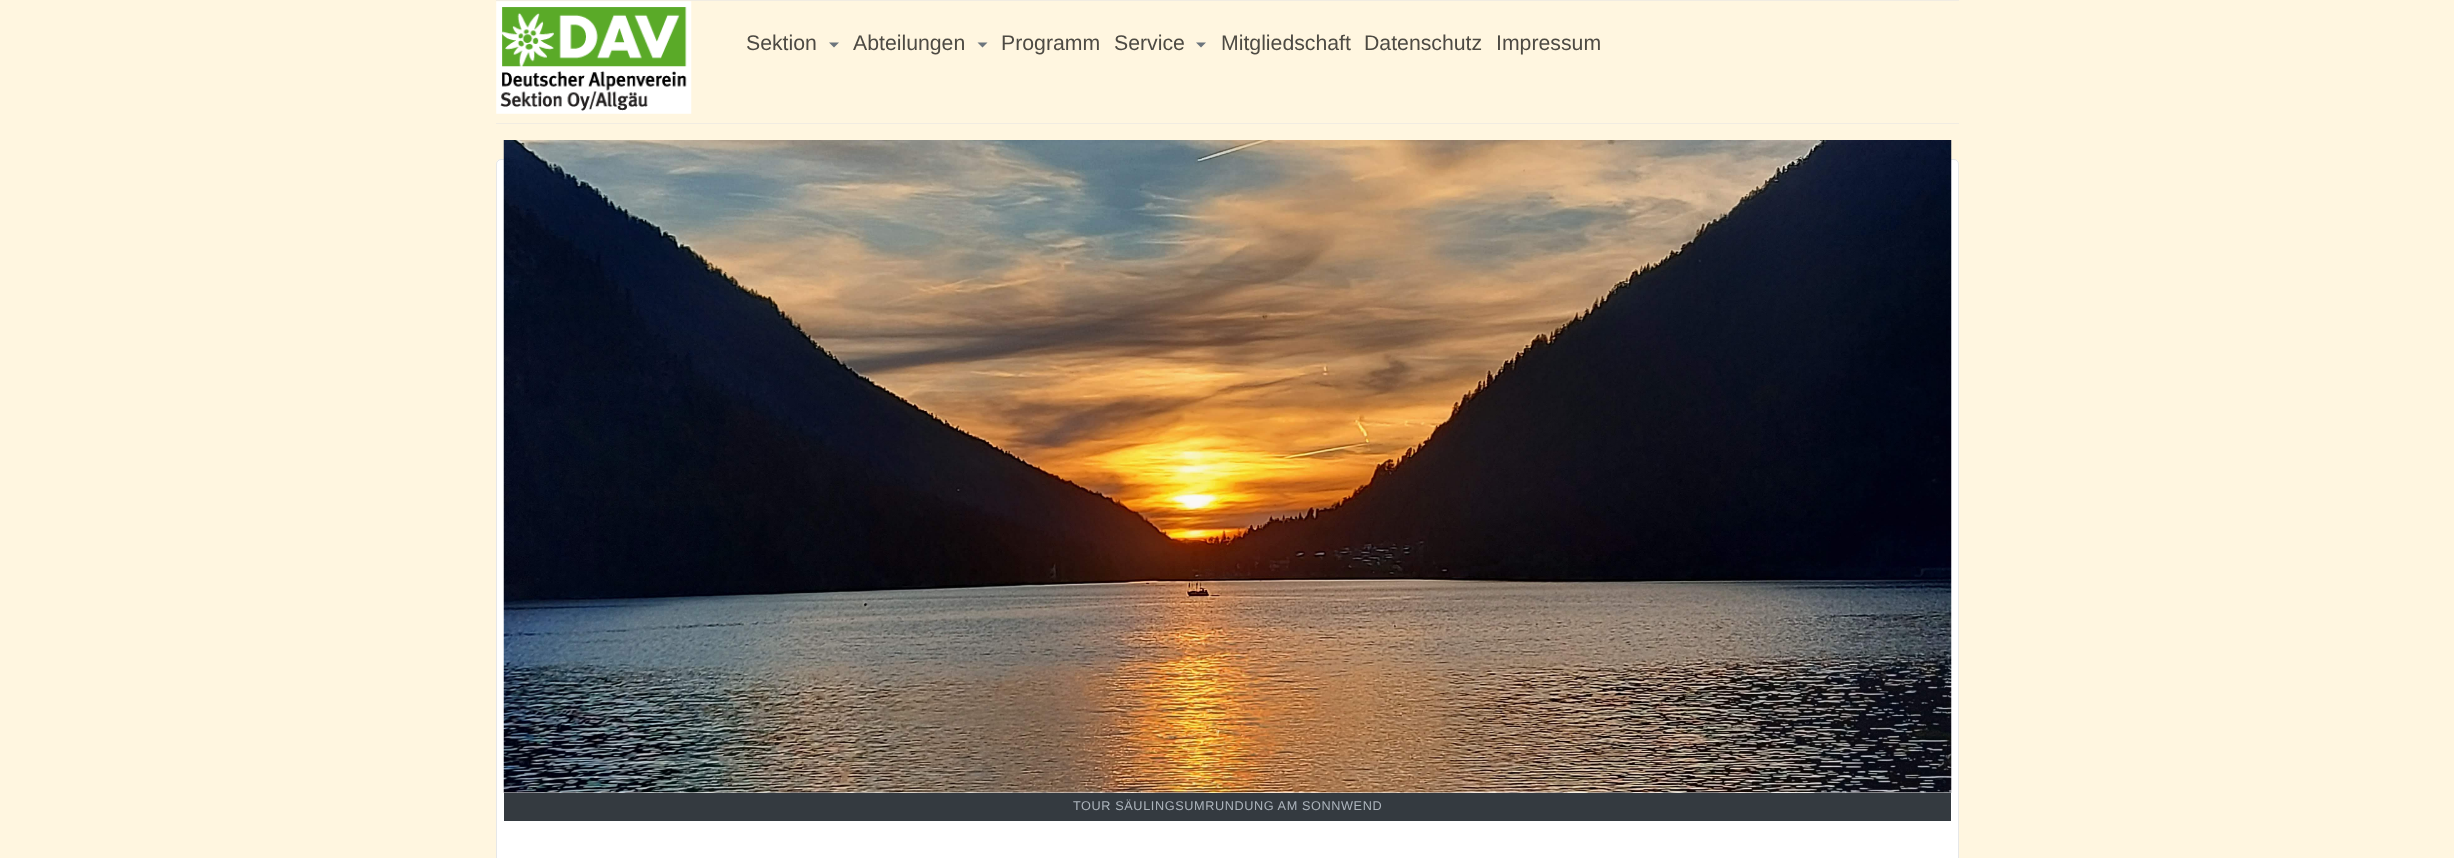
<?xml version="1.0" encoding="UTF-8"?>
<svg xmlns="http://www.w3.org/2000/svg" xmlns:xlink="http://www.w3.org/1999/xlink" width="2454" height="858">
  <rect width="100%" height="100%" fill="#fff6e0" />
  <rect x="496" width="1463" height="1" fill="#f1ece2" />
  <image x="496" y="1" width="196" height="113" xlink:href="image1.png" />
  <path d="M 829 42.5 h 10 l -5 5 z" fill="#6c757d" />
  <path d="M 977.5 42.5 h 10 l -5 5 z" fill="#6c757d" />
  <path d="M 1196 42.5 h 10 l -5 5 z" fill="#6c757d" />
  <rect x="496" y="123" width="1463" height="1" fill="#f1ece2" />
  <rect x="496" y="159" width="1463" height="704" rx="5" fill="#ffffff" />
  <rect x="496.5" y="159.5" width="1462" height="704" rx="4.5" fill="none" stroke="#343a40" stroke-opacity="0.12" />
  <image x="503" y="140" width="1449" height="653" xlink:href="image2.png" />
  <rect x="504" y="793" width="1447" height="28" fill="#343a40" />
  <text x="746" y="50" style="font-family: Liberation Sans; font-size: 21.25px; fill: #4d4a43">Sektion</text>
  <text x="853" y="50" style="font-family: Liberation Sans; font-size: 21.25px; fill: #4d4a43">Abteilungen</text>
  <text x="1001" y="50" style="font-family: Liberation Sans; font-size: 21.25px; fill: #4d4a43">Programm</text>
  <text x="1114" y="50" style="font-family: Liberation Sans; font-size: 21.25px; fill: #4d4a43">Service</text>
  <text x="1221" y="50" style="font-family: Liberation Sans; font-size: 21.25px; fill: #4d4a43">Mitgliedschaft</text>
  <text x="1364" y="50" style="font-family: Liberation Sans; font-size: 21.25px; fill: #4d4a43">Datenschutz</text>
  <text x="1496" y="50" style="font-family: Liberation Sans; font-size: 21.25px; fill: #4d4a43">Impressum</text>
  <text x="1073" y="810" style="font-family: Liberation Sans; font-size: 12.7px; letter-spacing: 0.6px; fill: #adb5bd">TOUR SÄULINGSUMRUNDUNG AM SONNWEND</text>
</svg>
